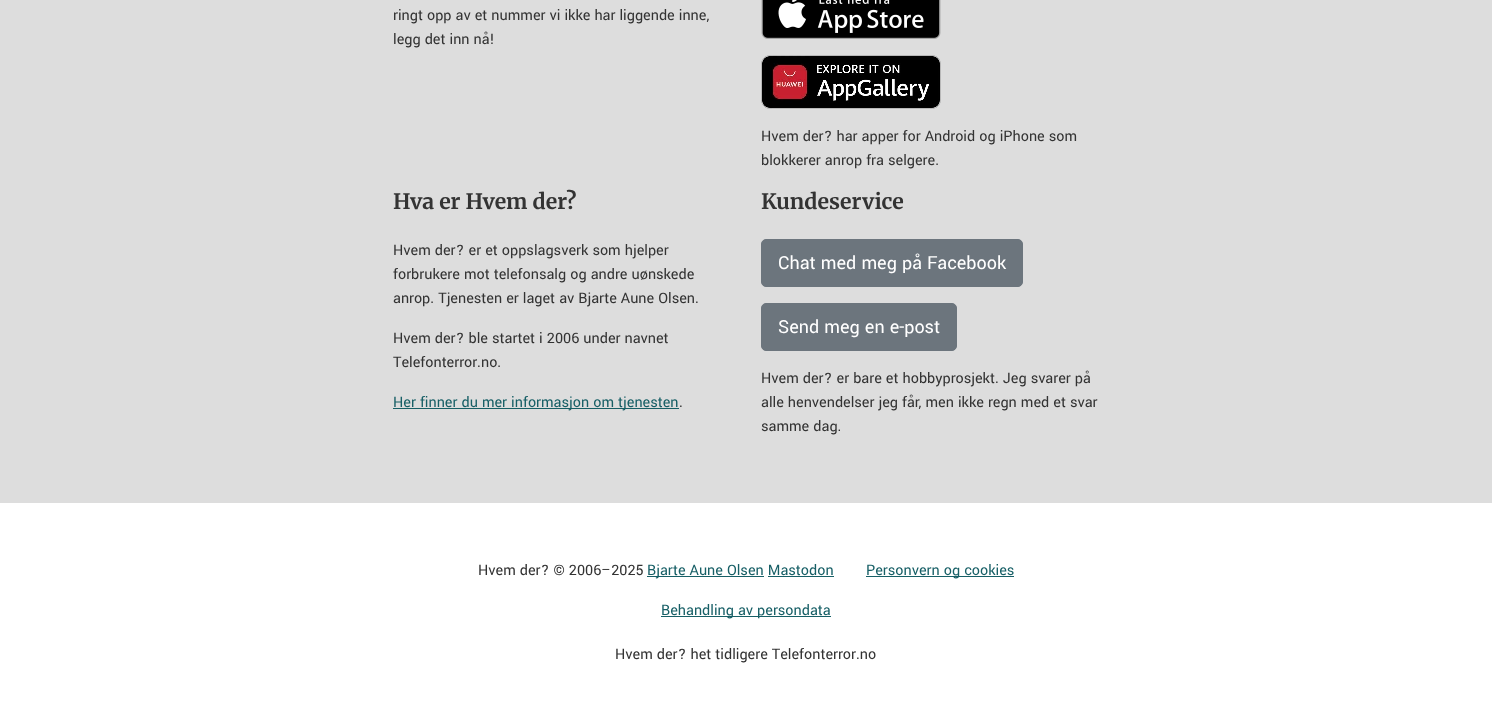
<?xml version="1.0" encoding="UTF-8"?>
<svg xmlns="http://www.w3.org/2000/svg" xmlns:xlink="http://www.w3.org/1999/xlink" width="1492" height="723">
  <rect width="100%" height="100%" fill="#ffffff" />
  <rect width="1492" height="503" fill="#dddddd" />
  <image x="761" y="0" width="180" height="39" xlink:href="image1.png" />
  <image x="761" y="55" width="180" height="54" xlink:href="image2.png" />
  <rect x="393" y="408" width="286" height="1" fill="#175f66" />
  <rect x="761.5" y="239.5" width="261" height="47" rx="4.5" fill="#6c757d" stroke="#6c757d" />
  <rect x="761.5" y="303.5" width="195" height="47" rx="4.5" fill="#6c757d" stroke="#6c757d" />
  <rect x="647" y="576" width="117" height="1" fill="#175f66" />
  <rect x="768" y="576" width="66" height="1" fill="#175f66" />
  <rect x="866" y="576" width="148" height="1" fill="#175f66" />
  <rect x="661" y="616" width="170" height="1" fill="#175f66" />
  <text x="393" y="20" style="font-family: Yantramanav; font-size: 16px; fill: #333333">ringt opp av et nummer vi ikke har liggende inne,</text>
  <text x="393" y="44" style="font-family: Yantramanav; font-size: 16px; fill: #333333">legg det inn nå!</text>
  <text x="761" y="141" style="font-family: Yantramanav; font-size: 16px; fill: #333333">Hvem der? har apper for Android og iPhone som</text>
  <text x="761" y="165" style="font-family: Yantramanav; font-size: 16px; fill: #333333">blokkerer anrop fra selgere.</text>
  <text x="393" y="209" style="font-family: Merriweather; font-size: 21.25px; font-weight: bold; fill: #333333">Hva er Hvem der?</text>
  <text x="393" y="255" style="font-family: Yantramanav; font-size: 16px; fill: #333333">Hvem der? er et oppslagsverk som hjelper</text>
  <text x="393" y="279" style="font-family: Yantramanav; font-size: 16px; fill: #333333">forbrukere mot telefonsalg og andre uønskede</text>
  <text x="393" y="303" style="font-family: Yantramanav; font-size: 16px; fill: #333333">anrop. Tjenesten er laget av Bjarte Aune Olsen.</text>
  <text x="393" y="343" style="font-family: Yantramanav; font-size: 16px; fill: #333333">Hvem der? ble startet i 2006 under navnet</text>
  <text x="393" y="367" style="font-family: Yantramanav; font-size: 16px; fill: #333333">Telefonterror.no.</text>
  <text x="393" y="407" style="font-family: Yantramanav; font-size: 16px; fill: #175f66">Her finner du mer informasjon om tjenesten</text>
  <text x="679" y="407" style="font-family: Yantramanav; font-size: 16px; fill: #333333">.</text>
  <text x="761" y="209" style="font-family: Merriweather; font-size: 21.25px; font-weight: bold; fill: #333333">Kundeservice</text>
  <text x="778" y="269" style="font-family: Yantramanav; font-size: 20px; fill: #ffffff">Chat med meg på Facebook</text>
  <text x="778" y="333" style="font-family: Yantramanav; font-size: 20px; fill: #ffffff">Send meg en e-post</text>
  <text x="761" y="383" style="font-family: Yantramanav; font-size: 16px; fill: #333333">Hvem der? er bare et hobbyprosjekt. Jeg svarer på</text>
  <text x="761" y="407" style="font-family: Yantramanav; font-size: 16px; fill: #333333">alle henvendelser jeg får, men ikke regn med et svar</text>
  <text x="761" y="431" style="font-family: Yantramanav; font-size: 16px; fill: #333333">samme dag.</text>
  <text x="478" y="575" style="font-family: Yantramanav; font-size: 16px; fill: #333333">Hvem der? © 2006–2025</text>
  <text x="647" y="575" style="font-family: Yantramanav; font-size: 16px; fill: #175f66">Bjarte Aune Olsen Mastodon</text>
  <text x="866" y="575" style="font-family: Yantramanav; font-size: 16px; fill: #175f66">Personvern og cookies</text>
  <text x="661" y="615" style="font-family: Yantramanav; font-size: 16px; fill: #175f66">Behandling av persondata</text>
  <text x="615" y="659" style="font-family: Yantramanav; font-size: 16px; fill: #333333">Hvem der? het tidligere Telefonterror.no</text>
</svg>
